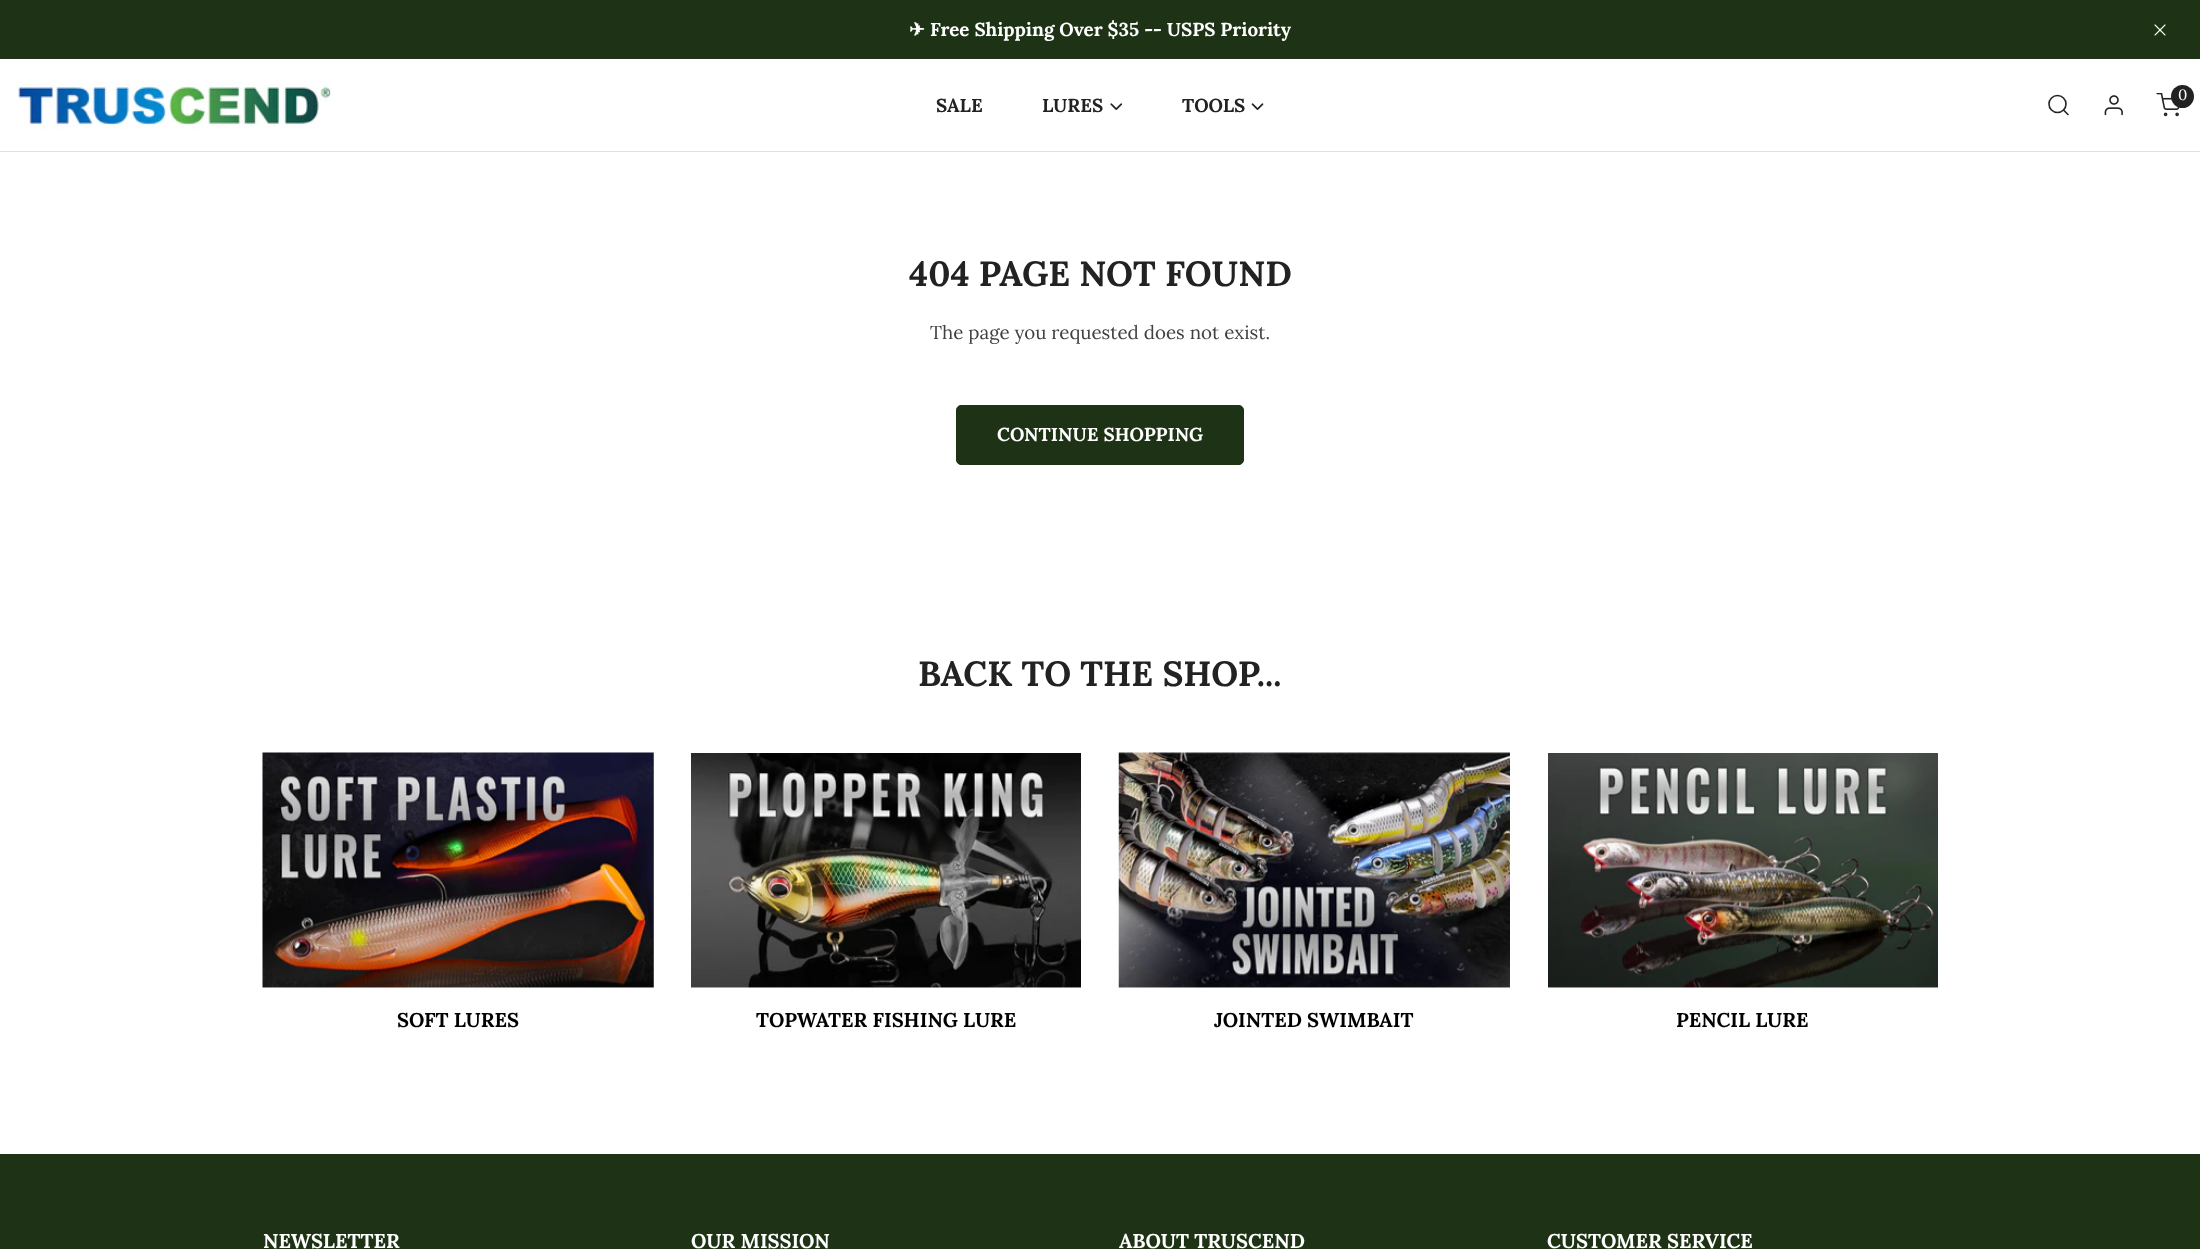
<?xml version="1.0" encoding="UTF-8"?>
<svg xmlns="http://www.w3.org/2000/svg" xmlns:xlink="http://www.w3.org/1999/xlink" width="2200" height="1249">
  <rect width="100%" height="100%" fill="#ffffff" />
  <rect width="2200" height="59" fill="#1e3315" />
  <image x="2154" y="24" width="12" height="12" xlink:href="image1.png" />
  <rect y="151" width="2200" height="1" fill="#dfdfdf" />
  <image x="18" y="81" width="313" height="49" xlink:href="image2.png" />
  <circle cx="2057.5" cy="104" r="8.5" fill="none" stroke="#222222" stroke-width="1.6" />
  <path d="M 2068 114.5 l -4.5 -4.5" fill="none" stroke="#222222" stroke-width="1.6" stroke-linecap="round" stroke-linejoin="round" />
  <image x="2104" y="95" width="19" height="21" xlink:href="image3.png" />
  <image x="2156" y="93" width="24" height="24" xlink:href="image4.png" />
  <circle cx="2182.5" cy="96.5" r="11.5" fill="#222222" />
  <image x="1110" y="103" width="13" height="7" xlink:href="image5.png" />
  <image x="1251" y="103" width="13" height="7" xlink:href="image6.png" />
  <rect x="956.5" y="405.5" width="287" height="59" rx="4.5" fill="#1e3315" stroke="#1e3315" />
  <image x="262" y="752" width="392" height="236" xlink:href="image7.png" />
  <image x="691" y="753" width="390" height="235" xlink:href="image8.png" />
  <image x="1118" y="752" width="392" height="236" xlink:href="image9.png" />
  <image x="1548" y="753" width="390" height="235" xlink:href="image10.png" />
  <rect y="1154" width="2200" height="95" fill="#1e3315" />
  <text x="909" y="36" style="font-family: DejaVu Sans; font-size: 18.75px; font-weight: bold; fill: #ffffff">✈</text>
  <text x="930" y="36" style="font-family: Lora; font-size: 18.75px; font-weight: bold; fill: #ffffff">Free Shipping Over $35 -- USPS Priority</text>
  <text x="2178" y="100" style="font-family: Lora; font-size: 15px; fill: #ffffff">0</text>
  <text x="936" y="112" style="font-family: Lora; font-size: 18.75px; font-weight: bold; fill: #222222">SALE</text>
  <text x="1042" y="112" style="font-family: Lora; font-size: 18.75px; font-weight: bold; fill: #222222">LURES</text>
  <text x="1182" y="112" style="font-family: Lora; font-size: 18.75px; font-weight: bold; fill: #222222">TOOLS</text>
  <text x="909" y="286" style="font-family: Lora; font-size: 35px; font-weight: bold; fill: #222222">404 PAGE NOT FOUND</text>
  <text x="930" y="339" style="font-family: Lora; font-size: 18.75px; fill: #404040">The page you requested does not exist.</text>
  <text x="997" y="441" style="font-family: Lora; font-size: 18.75px; font-weight: bold; fill: #ffffff">CONTINUE SHOPPING</text>
  <text x="918" y="686" style="font-family: Lora; font-size: 35px; font-weight: bold; fill: #222222">BACK TO THE SHOP...</text>
  <text x="397" y="1027" style="font-family: Lora; font-size: 20px; font-weight: bold; fill: #000000">SOFT LURES</text>
  <text x="756" y="1027" style="font-family: Lora; font-size: 20px; font-weight: bold; fill: #000000">TOPWATER FISHING LURE</text>
  <text x="1214" y="1027" style="font-family: Lora; font-size: 20px; font-weight: bold; fill: #000000">JOINTED SWIMBAIT</text>
  <text x="1676" y="1027" style="font-family: Lora; font-size: 20px; font-weight: bold; fill: #000000">PENCIL LURE</text>
  <text x="263" y="1248" style="font-family: Lora; font-size: 20px; font-weight: bold; fill: #ffffff">NEWSLETTER</text>
  <text x="691" y="1248" style="font-family: Lora; font-size: 20px; font-weight: bold; fill: #ffffff">OUR MISSION</text>
  <text x="1119" y="1248" style="font-family: Lora; font-size: 20px; font-weight: bold; fill: #ffffff">ABOUT TRUSCEND</text>
  <text x="1547" y="1248" style="font-family: Lora; font-size: 20px; font-weight: bold; fill: #ffffff">CUSTOMER SERVICE</text>
</svg>
